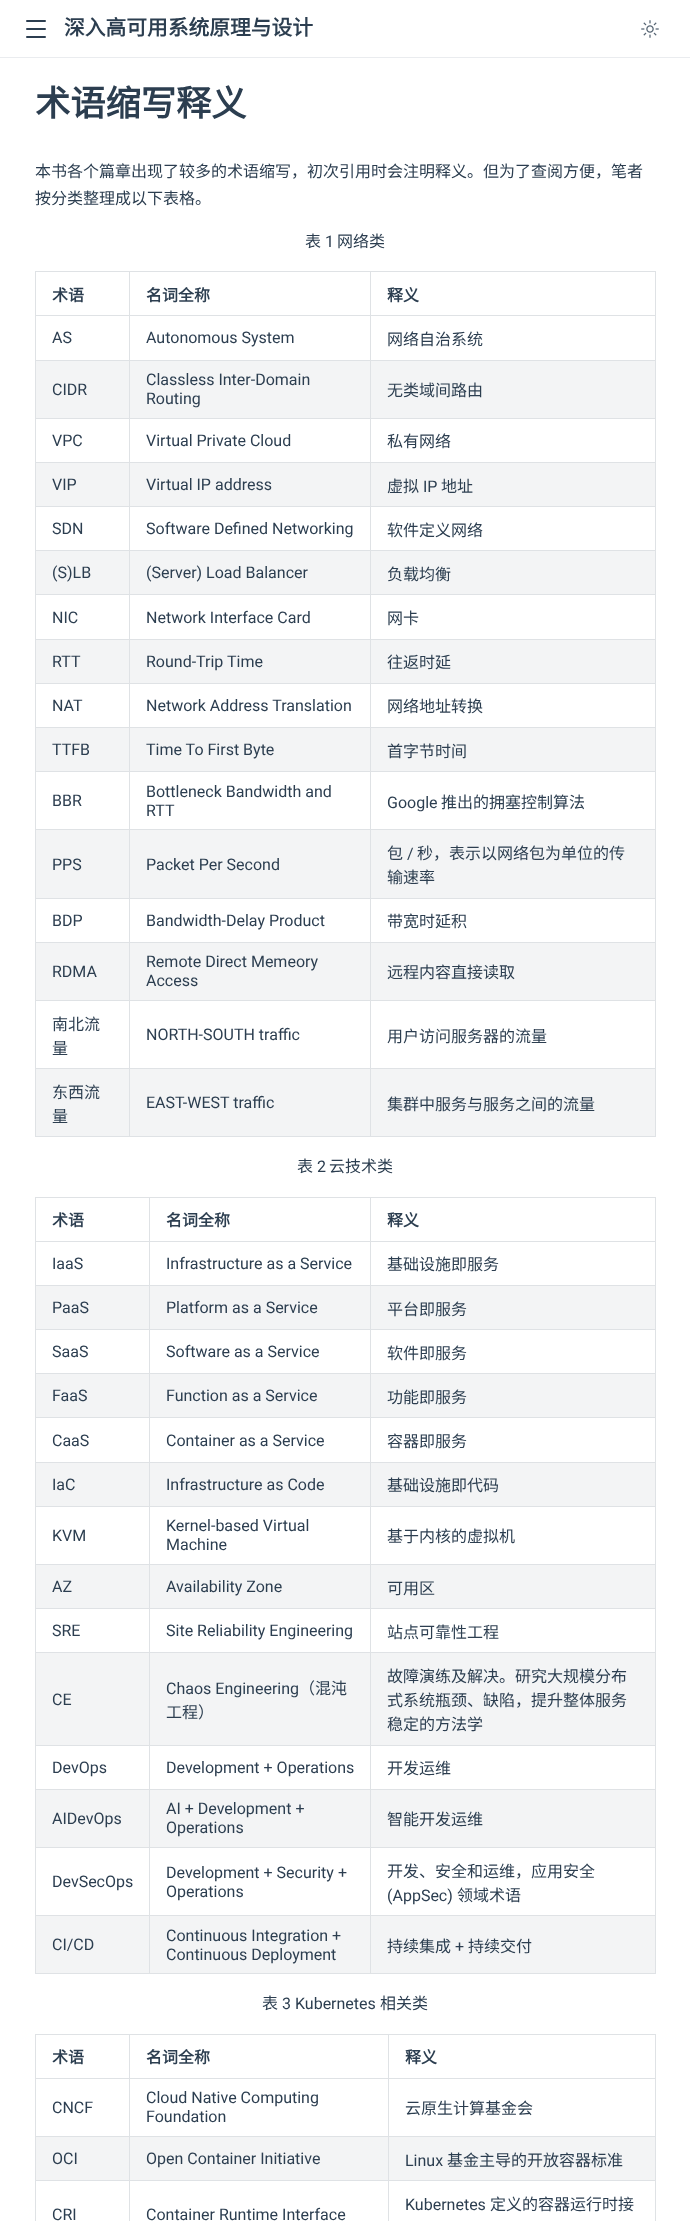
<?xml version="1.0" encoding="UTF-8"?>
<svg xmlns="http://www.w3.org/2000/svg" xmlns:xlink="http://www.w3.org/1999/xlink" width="690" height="2221">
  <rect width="100%" height="100%" fill="#ffffff" />
  <rect y="57" width="690" height="1" fill="#eaecef" />
  <rect x="26" y="20" width="20" height="2" rx="1" fill="#2c3e50" />
  <rect x="26" y="28" width="20" height="2" rx="1" fill="#2c3e50" />
  <rect x="26" y="36" width="20" height="2" rx="1" fill="#2c3e50" />
  <image x="641" y="20" width="18" height="18" xlink:href="image1.png" />
  <rect x="35" y="271" width="621" height="1" fill="#dfe2e5" />
  <rect x="35" y="315" width="621" height="1" fill="#dfe2e5" />
  <rect x="36" y="361" width="619" height="57" fill="#f3f4f5" />
  <rect x="35" y="360" width="621" height="1" fill="#dfe2e5" />
  <rect x="35" y="418" width="621" height="1" fill="#dfe2e5" />
  <rect x="36" y="463" width="619" height="43" fill="#f3f4f5" />
  <rect x="35" y="462" width="621" height="1" fill="#dfe2e5" />
  <rect x="35" y="506" width="621" height="1" fill="#dfe2e5" />
  <rect x="36" y="551" width="619" height="43" fill="#f3f4f5" />
  <rect x="35" y="550" width="621" height="1" fill="#dfe2e5" />
  <rect x="35" y="594" width="621" height="1" fill="#dfe2e5" />
  <rect x="36" y="640" width="619" height="43" fill="#f3f4f5" />
  <rect x="35" y="639" width="621" height="1" fill="#dfe2e5" />
  <rect x="35" y="683" width="621" height="1" fill="#dfe2e5" />
  <rect x="36" y="728" width="619" height="43" fill="#f3f4f5" />
  <rect x="35" y="727" width="621" height="1" fill="#dfe2e5" />
  <rect x="35" y="771" width="621" height="1" fill="#dfe2e5" />
  <rect x="36" y="830" width="619" height="68" fill="#f3f4f5" />
  <rect x="35" y="829" width="621" height="1" fill="#dfe2e5" />
  <rect x="35" y="898" width="621" height="1" fill="#dfe2e5" />
  <rect x="36" y="943" width="619" height="57" fill="#f3f4f5" />
  <rect x="35" y="942" width="621" height="1" fill="#dfe2e5" />
  <rect x="35" y="1000" width="621" height="1" fill="#dfe2e5" />
  <rect x="36" y="1069" width="619" height="67" fill="#f3f4f5" />
  <rect x="35" y="1068" width="621" height="1" fill="#dfe2e5" />
  <rect x="655" y="271" width="1" height="866" fill="#dfe2e5" />
  <rect x="370" y="1136" width="286" height="1" fill="#dfe2e5" />
  <rect x="370" y="271" width="1" height="866" fill="#dfe2e5" />
  <rect x="129" y="1136" width="242" height="1" fill="#dfe2e5" />
  <rect x="129" y="271" width="1" height="866" fill="#dfe2e5" />
  <rect x="35" y="1136" width="95" height="1" fill="#dfe2e5" />
  <rect x="35" y="271" width="1" height="866" fill="#dfe2e5" />
  <rect x="35" y="1197" width="621" height="1" fill="#dfe2e5" />
  <rect x="35" y="1241" width="621" height="1" fill="#dfe2e5" />
  <rect x="36" y="1286" width="619" height="43" fill="#f3f4f5" />
  <rect x="35" y="1285" width="621" height="1" fill="#dfe2e5" />
  <rect x="35" y="1329" width="621" height="1" fill="#dfe2e5" />
  <rect x="36" y="1374" width="619" height="43" fill="#f3f4f5" />
  <rect x="35" y="1373" width="621" height="1" fill="#dfe2e5" />
  <rect x="35" y="1417" width="621" height="1" fill="#dfe2e5" />
  <rect x="36" y="1463" width="619" height="43" fill="#f3f4f5" />
  <rect x="35" y="1462" width="621" height="1" fill="#dfe2e5" />
  <rect x="35" y="1506" width="621" height="1" fill="#dfe2e5" />
  <rect x="36" y="1565" width="619" height="43" fill="#f3f4f5" />
  <rect x="35" y="1564" width="621" height="1" fill="#dfe2e5" />
  <rect x="35" y="1608" width="621" height="1" fill="#dfe2e5" />
  <rect x="36" y="1653" width="619" height="92" fill="#f3f4f5" />
  <rect x="35" y="1652" width="621" height="1" fill="#dfe2e5" />
  <rect x="35" y="1745" width="621" height="1" fill="#dfe2e5" />
  <rect x="36" y="1790" width="619" height="57" fill="#f3f4f5" />
  <rect x="35" y="1789" width="621" height="1" fill="#dfe2e5" />
  <rect x="35" y="1847" width="621" height="1" fill="#dfe2e5" />
  <rect x="36" y="1916" width="619" height="57" fill="#f3f4f5" />
  <rect x="35" y="1915" width="621" height="1" fill="#dfe2e5" />
  <rect x="655" y="1197" width="1" height="777" fill="#dfe2e5" />
  <rect x="370" y="1973" width="286" height="1" fill="#dfe2e5" />
  <rect x="370" y="1197" width="1" height="777" fill="#dfe2e5" />
  <rect x="149" y="1973" width="222" height="1" fill="#dfe2e5" />
  <rect x="149" y="1197" width="1" height="777" fill="#dfe2e5" />
  <rect x="35" y="1973" width="115" height="1" fill="#dfe2e5" />
  <rect x="35" y="1197" width="1" height="777" fill="#dfe2e5" />
  <rect x="35" y="2034" width="621" height="1" fill="#dfe2e5" />
  <rect x="35" y="2078" width="621" height="1" fill="#dfe2e5" />
  <rect x="36" y="2137" width="619" height="43" fill="#f3f4f5" />
  <rect x="35" y="2136" width="621" height="1" fill="#dfe2e5" />
  <rect x="35" y="2180" width="621" height="1" fill="#dfe2e5" />
  <rect x="655" y="2034" width="1" height="187" fill="#dfe2e5" />
  <rect x="388" y="2034" width="1" height="187" fill="#dfe2e5" />
  <rect x="35" y="2034" width="1" height="187" fill="#dfe2e5" />
  <rect x="129" y="2034" width="1" height="187" fill="#dfe2e5" />
  <text x="64" y="35" style="font-family: Noto Sans CJK SC; font-size: 20.75px; font-weight: bold; fill: #2c3e50">深入高可用系统原理与设计</text>
  <text x="35" y="116" style="font-family: Noto Sans CJK SC; font-size: 35.25px; font-weight: bold; fill: #2c3e50">术语缩写释义</text>
  <text x="35" y="177" style="font-family: Noto Sans CJK SC; font-size: 16px; fill: #2c3e50">本书各个篇章出现了较多的术语缩写，初次引用时会注明释义。但为了查阅方便，笔者</text>
  <text x="35" y="204" style="font-family: Noto Sans CJK SC; font-size: 16px; fill: #2c3e50">按分类整理成以下表格。</text>
  <text x="305" y="247" style="font-family: Noto Sans CJK SC; font-size: 16px; fill: #2c3e50">表</text>
  <text x="325" y="247" style="font-family: Roboto; font-size: 16px; fill: #2c3e50">1</text>
  <text x="337" y="247" style="font-family: Noto Sans CJK SC; font-size: 16px; fill: #2c3e50">网络类</text>
  <text x="52" y="301" style="font-family: Noto Sans CJK SC; font-size: 16px; font-weight: bold; fill: #2c3e50">术语</text>
  <text x="146" y="301" style="font-family: Noto Sans CJK SC; font-size: 16px; font-weight: bold; fill: #2c3e50">名词全称</text>
  <text x="387" y="301" style="font-family: Noto Sans CJK SC; font-size: 16px; font-weight: bold; fill: #2c3e50">释义</text>
  <text x="52" y="343" style="font-family: Roboto; font-size: 16px; fill: #2c3e50">AS</text>
  <text x="146" y="343" style="font-family: Roboto; font-size: 16px; fill: #2c3e50">Autonomous System</text>
  <text x="387" y="345" style="font-family: Noto Sans CJK SC; font-size: 16px; fill: #2c3e50">网络自治系统</text>
  <text x="52" y="395" style="font-family: Roboto; font-size: 16px; fill: #2c3e50">CIDR</text>
  <text x="146" y="385" style="font-family: Roboto; font-size: 16px; fill: #2c3e50">Classless Inter-Domain</text>
  <text x="146" y="404" style="font-family: Roboto; font-size: 16px; fill: #2c3e50">Routing</text>
  <text x="387" y="396" style="font-family: Noto Sans CJK SC; font-size: 16px; fill: #2c3e50">无类域间路由</text>
  <text x="52" y="446" style="font-family: Roboto; font-size: 16px; fill: #2c3e50">VPC</text>
  <text x="146" y="446" style="font-family: Roboto; font-size: 16px; fill: #2c3e50">Virtual Private Cloud</text>
  <text x="387" y="447" style="font-family: Noto Sans CJK SC; font-size: 16px; fill: #2c3e50">私有网络</text>
  <text x="52" y="490" style="font-family: Roboto; font-size: 16px; fill: #2c3e50">VIP</text>
  <text x="146" y="490" style="font-family: Roboto; font-size: 16px; fill: #2c3e50">Virtual IP address</text>
  <text x="387" y="492" style="font-family: Noto Sans CJK SC; font-size: 16px; fill: #2c3e50">虚拟</text>
  <text x="423" y="492" style="font-family: Roboto; font-size: 16px; fill: #2c3e50">IP</text>
  <text x="441" y="492" style="font-family: Noto Sans CJK SC; font-size: 16px; fill: #2c3e50">地址</text>
  <text x="52" y="534" style="font-family: Roboto; font-size: 16px; fill: #2c3e50">SDN</text>
  <text x="146" y="534" style="font-family: Roboto; font-size: 16px; fill: #2c3e50">Software Defined Networking</text>
  <text x="387" y="536" style="font-family: Noto Sans CJK SC; font-size: 16px; fill: #2c3e50">软件定义网络</text>
  <text x="52" y="578" style="font-family: Roboto; font-size: 16px; fill: #2c3e50">(S)LB</text>
  <text x="146" y="578" style="font-family: Roboto; font-size: 16px; fill: #2c3e50">(Server) Load Balancer</text>
  <text x="387" y="580" style="font-family: Noto Sans CJK SC; font-size: 16px; fill: #2c3e50">负载均衡</text>
  <text x="52" y="623" style="font-family: Roboto; font-size: 16px; fill: #2c3e50">NIC</text>
  <text x="146" y="623" style="font-family: Roboto; font-size: 16px; fill: #2c3e50">Network Interface Card</text>
  <text x="387" y="624" style="font-family: Noto Sans CJK SC; font-size: 16px; fill: #2c3e50">网卡</text>
  <text x="52" y="667" style="font-family: Roboto; font-size: 16px; fill: #2c3e50">RTT</text>
  <text x="146" y="667" style="font-family: Roboto; font-size: 16px; fill: #2c3e50">Round-Trip Time</text>
  <text x="387" y="668" style="font-family: Noto Sans CJK SC; font-size: 16px; fill: #2c3e50">往返时延</text>
  <text x="52" y="711" style="font-family: Roboto; font-size: 16px; fill: #2c3e50">NAT</text>
  <text x="146" y="711" style="font-family: Roboto; font-size: 16px; fill: #2c3e50">Network Address Translation</text>
  <text x="387" y="712" style="font-family: Noto Sans CJK SC; font-size: 16px; fill: #2c3e50">网络地址转换</text>
  <text x="52" y="755" style="font-family: Roboto; font-size: 16px; fill: #2c3e50">TTFB</text>
  <text x="146" y="755" style="font-family: Roboto; font-size: 16px; fill: #2c3e50">Time To First Byte</text>
  <text x="387" y="757" style="font-family: Noto Sans CJK SC; font-size: 16px; fill: #2c3e50">首字节时间</text>
  <text x="52" y="806" style="font-family: Roboto; font-size: 16px; fill: #2c3e50">BBR</text>
  <text x="146" y="797" style="font-family: Roboto; font-size: 16px; fill: #2c3e50">Bottleneck Bandwidth and</text>
  <text x="146" y="816" style="font-family: Roboto; font-size: 16px; fill: #2c3e50">RTT</text>
  <text x="387" y="808" style="font-family: Roboto; font-size: 16px; fill: #2c3e50">Google</text>
  <text x="441" y="808" style="font-family: Noto Sans CJK SC; font-size: 16px; fill: #2c3e50">推出的拥塞控制算法</text>
  <text x="52" y="870" style="font-family: Roboto; font-size: 16px; fill: #2c3e50">PPS</text>
  <text x="146" y="870" style="font-family: Roboto; font-size: 16px; fill: #2c3e50">Packet Per Second</text>
  <text x="387" y="859" style="font-family: Noto Sans CJK SC; font-size: 16px; fill: #2c3e50">包</text>
  <text x="407" y="859" style="font-family: Roboto; font-size: 16px; fill: #2c3e50">/</text>
  <text x="417" y="859" style="font-family: Noto Sans CJK SC; font-size: 16px; fill: #2c3e50">秒，表示以网络包为单位的传</text>
  <text x="387" y="883" style="font-family: Noto Sans CJK SC; font-size: 16px; fill: #2c3e50">输速率</text>
  <text x="52" y="926" style="font-family: Roboto; font-size: 16px; fill: #2c3e50">BDP</text>
  <text x="146" y="926" style="font-family: Roboto; font-size: 16px; fill: #2c3e50">Bandwidth-Delay Product</text>
  <text x="387" y="927" style="font-family: Noto Sans CJK SC; font-size: 16px; fill: #2c3e50">带宽时延积</text>
  <text x="52" y="977" style="font-family: Roboto; font-size: 16px; fill: #2c3e50">RDMA</text>
  <text x="146" y="967" style="font-family: Roboto; font-size: 16px; fill: #2c3e50">Remote Direct Memeory</text>
  <text x="146" y="986" style="font-family: Roboto; font-size: 16px; fill: #2c3e50">Access</text>
  <text x="387" y="978" style="font-family: Noto Sans CJK SC; font-size: 16px; fill: #2c3e50">远程内容直接读取</text>
  <text x="52" y="1030" style="font-family: Noto Sans CJK SC; font-size: 16px; fill: #2c3e50">南北流</text>
  <text x="52" y="1054" style="font-family: Noto Sans CJK SC; font-size: 16px; fill: #2c3e50">量</text>
  <text x="146" y="1040" style="font-family: Roboto; font-size: 16px; fill: #2c3e50">NORTH-SOUTH traffic</text>
  <text x="387" y="1042" style="font-family: Noto Sans CJK SC; font-size: 16px; fill: #2c3e50">用户访问服务器的流量</text>
  <text x="52" y="1098" style="font-family: Noto Sans CJK SC; font-size: 16px; fill: #2c3e50">东西流</text>
  <text x="52" y="1122" style="font-family: Noto Sans CJK SC; font-size: 16px; fill: #2c3e50">量</text>
  <text x="146" y="1108" style="font-family: Roboto; font-size: 16px; fill: #2c3e50">EAST-WEST traffic</text>
  <text x="387" y="1110" style="font-family: Noto Sans CJK SC; font-size: 16px; fill: #2c3e50">集群中服务与服务之间的流量</text>
  <text x="297" y="1172" style="font-family: Noto Sans CJK SC; font-size: 16px; fill: #2c3e50">表</text>
  <text x="317" y="1172" style="font-family: Roboto; font-size: 16px; fill: #2c3e50">2</text>
  <text x="329" y="1172" style="font-family: Noto Sans CJK SC; font-size: 16px; fill: #2c3e50">云技术类</text>
  <text x="52" y="1226" style="font-family: Noto Sans CJK SC; font-size: 16px; font-weight: bold; fill: #2c3e50">术语</text>
  <text x="166" y="1226" style="font-family: Noto Sans CJK SC; font-size: 16px; font-weight: bold; fill: #2c3e50">名词全称</text>
  <text x="387" y="1226" style="font-family: Noto Sans CJK SC; font-size: 16px; font-weight: bold; fill: #2c3e50">释义</text>
  <text x="52" y="1269" style="font-family: Roboto; font-size: 16px; fill: #2c3e50">IaaS</text>
  <text x="166" y="1269" style="font-family: Roboto; font-size: 16px; fill: #2c3e50">Infrastructure as a Service</text>
  <text x="387" y="1270" style="font-family: Noto Sans CJK SC; font-size: 16px; fill: #2c3e50">基础设施即服务</text>
  <text x="52" y="1313" style="font-family: Roboto; font-size: 16px; fill: #2c3e50">PaaS</text>
  <text x="166" y="1313" style="font-family: Roboto; font-size: 16px; fill: #2c3e50">Platform as a Service</text>
  <text x="387" y="1315" style="font-family: Noto Sans CJK SC; font-size: 16px; fill: #2c3e50">平台即服务</text>
  <text x="52" y="1357" style="font-family: Roboto; font-size: 16px; fill: #2c3e50">SaaS</text>
  <text x="166" y="1357" style="font-family: Roboto; font-size: 16px; fill: #2c3e50">Software as a Service</text>
  <text x="387" y="1359" style="font-family: Noto Sans CJK SC; font-size: 16px; fill: #2c3e50">软件即服务</text>
  <text x="52" y="1401" style="font-family: Roboto; font-size: 16px; fill: #2c3e50">FaaS</text>
  <text x="166" y="1401" style="font-family: Roboto; font-size: 16px; fill: #2c3e50">Function as a Service</text>
  <text x="387" y="1403" style="font-family: Noto Sans CJK SC; font-size: 16px; fill: #2c3e50">功能即服务</text>
  <text x="52" y="1446" style="font-family: Roboto; font-size: 16px; fill: #2c3e50">CaaS</text>
  <text x="166" y="1446" style="font-family: Roboto; font-size: 16px; fill: #2c3e50">Container as a Service</text>
  <text x="387" y="1447" style="font-family: Noto Sans CJK SC; font-size: 16px; fill: #2c3e50">容器即服务</text>
  <text x="52" y="1490" style="font-family: Roboto; font-size: 16px; fill: #2c3e50">IaC</text>
  <text x="166" y="1490" style="font-family: Roboto; font-size: 16px; fill: #2c3e50">Infrastructure as Code</text>
  <text x="387" y="1491" style="font-family: Noto Sans CJK SC; font-size: 16px; fill: #2c3e50">基础设施即代码</text>
  <text x="52" y="1541" style="font-family: Roboto; font-size: 16px; fill: #2c3e50">KVM</text>
  <text x="166" y="1531" style="font-family: Roboto; font-size: 16px; fill: #2c3e50">Kernel-based Virtual</text>
  <text x="166" y="1550" style="font-family: Roboto; font-size: 16px; fill: #2c3e50">Machine</text>
  <text x="387" y="1542" style="font-family: Noto Sans CJK SC; font-size: 16px; fill: #2c3e50">基于内核的虚拟机</text>
  <text x="52" y="1592" style="font-family: Roboto; font-size: 16px; fill: #2c3e50">AZ</text>
  <text x="166" y="1592" style="font-family: Roboto; font-size: 16px; fill: #2c3e50">Availability Zone</text>
  <text x="387" y="1594" style="font-family: Noto Sans CJK SC; font-size: 16px; fill: #2c3e50">可用区</text>
  <text x="52" y="1636" style="font-family: Roboto; font-size: 16px; fill: #2c3e50">SRE</text>
  <text x="166" y="1636" style="font-family: Roboto; font-size: 16px; fill: #2c3e50">Site Reliability Engineering</text>
  <text x="387" y="1638" style="font-family: Noto Sans CJK SC; font-size: 16px; fill: #2c3e50">站点可靠性工程</text>
  <text x="52" y="1705" style="font-family: Roboto; font-size: 16px; fill: #2c3e50">CE</text>
  <text x="166" y="1694" style="font-family: Roboto; font-size: 16px; fill: #2c3e50">Chaos Engineering</text>
  <text x="299" y="1694" style="font-family: Noto Sans CJK SC; font-size: 16px; fill: #2c3e50">（混沌</text>
  <text x="166" y="1718" style="font-family: Noto Sans CJK SC; font-size: 16px; fill: #2c3e50">工程）</text>
  <text x="387" y="1682" style="font-family: Noto Sans CJK SC; font-size: 16px; fill: #2c3e50">故障演练及解决。研究大规模分布</text>
  <text x="387" y="1706" style="font-family: Noto Sans CJK SC; font-size: 16px; fill: #2c3e50">式系统瓶颈、缺陷，提升整体服务</text>
  <text x="387" y="1730" style="font-family: Noto Sans CJK SC; font-size: 16px; fill: #2c3e50">稳定的方法学</text>
  <text x="52" y="1773" style="font-family: Roboto; font-size: 16px; fill: #2c3e50">DevOps</text>
  <text x="166" y="1773" style="font-family: Roboto; font-size: 16px; fill: #2c3e50">Development + Operations</text>
  <text x="387" y="1774" style="font-family: Noto Sans CJK SC; font-size: 16px; fill: #2c3e50">开发运维</text>
  <text x="52" y="1824" style="font-family: Roboto; font-size: 16px; fill: #2c3e50">AIDevOps</text>
  <text x="166" y="1814" style="font-family: Roboto; font-size: 16px; fill: #2c3e50">AI + Development +</text>
  <text x="166" y="1833" style="font-family: Roboto; font-size: 16px; fill: #2c3e50">Operations</text>
  <text x="387" y="1825" style="font-family: Noto Sans CJK SC; font-size: 16px; fill: #2c3e50">智能开发运维</text>
  <text x="52" y="1887" style="font-family: Roboto; font-size: 16px; fill: #2c3e50">DevSecOps</text>
  <text x="166" y="1878" style="font-family: Roboto; font-size: 16px; fill: #2c3e50">Development + Security +</text>
  <text x="166" y="1897" style="font-family: Roboto; font-size: 16px; fill: #2c3e50">Operations</text>
  <text x="387" y="1877" style="font-family: Noto Sans CJK SC; font-size: 16px; fill: #2c3e50">开发、安全和运维，应用安全</text>
  <text x="387" y="1901" style="font-family: Roboto; font-size: 16px; fill: #2c3e50">(AppSec)</text>
  <text x="457" y="1901" style="font-family: Noto Sans CJK SC; font-size: 16px; fill: #2c3e50">领域术语</text>
  <text x="52" y="1950" style="font-family: Roboto; font-size: 16px; fill: #2c3e50">CI/CD</text>
  <text x="166" y="1941" style="font-family: Roboto; font-size: 16px; fill: #2c3e50">Continuous Integration +</text>
  <text x="166" y="1960" style="font-family: Roboto; font-size: 16px; fill: #2c3e50">Continuous Deployment</text>
  <text x="387" y="1952" style="font-family: Noto Sans CJK SC; font-size: 16px; fill: #2c3e50">持续集成</text>
  <text x="455" y="1952" style="font-family: Roboto; font-size: 16px; fill: #2c3e50">+</text>
  <text x="468" y="1952" style="font-family: Noto Sans CJK SC; font-size: 16px; fill: #2c3e50">持续交付</text>
  <text x="262" y="2009" style="font-family: Noto Sans CJK SC; font-size: 16px; fill: #2c3e50">表</text>
  <text x="282" y="2009" style="font-family: Roboto; font-size: 16px; fill: #2c3e50">3 Kubernetes</text>
  <text x="380" y="2009" style="font-family: Noto Sans CJK SC; font-size: 16px; fill: #2c3e50">相关类</text>
  <text x="52" y="2063" style="font-family: Noto Sans CJK SC; font-size: 16px; font-weight: bold; fill: #2c3e50">术语</text>
  <text x="146" y="2063" style="font-family: Noto Sans CJK SC; font-size: 16px; font-weight: bold; fill: #2c3e50">名词全称</text>
  <text x="405" y="2063" style="font-family: Noto Sans CJK SC; font-size: 16px; font-weight: bold; fill: #2c3e50">释义</text>
  <text x="52" y="2113" style="font-family: Roboto; font-size: 16px; fill: #2c3e50">CNCF</text>
  <text x="146" y="2103" style="font-family: Roboto; font-size: 16px; fill: #2c3e50">Cloud Native Computing</text>
  <text x="146" y="2122" style="font-family: Roboto; font-size: 16px; fill: #2c3e50">Foundation</text>
  <text x="405" y="2114" style="font-family: Noto Sans CJK SC; font-size: 16px; fill: #2c3e50">云原生计算基金会</text>
  <text x="52" y="2164" style="font-family: Roboto; font-size: 16px; fill: #2c3e50">OCI</text>
  <text x="146" y="2164" style="font-family: Roboto; font-size: 16px; fill: #2c3e50">Open Container Initiative</text>
  <text x="405" y="2166" style="font-family: Roboto; font-size: 16px; fill: #2c3e50">Linux</text>
  <text x="447" y="2166" style="font-family: Noto Sans CJK SC; font-size: 16px; fill: #2c3e50">基金主导的开放容器标准</text>
  <text x="405" y="2210" style="font-family: Roboto; font-size: 16px; fill: #2c3e50">Kubernetes</text>
  <text x="490" y="2210" style="font-family: Noto Sans CJK SC; font-size: 16px; fill: #2c3e50">定义的容器运行时接</text>
  <text x="52" y="2220" style="font-family: Roboto; font-size: 16px; fill: #2c3e50">CRI</text>
  <text x="146" y="2220" style="font-family: Roboto; font-size: 16px; fill: #2c3e50">Container Runtime Interface</text>
</svg>
